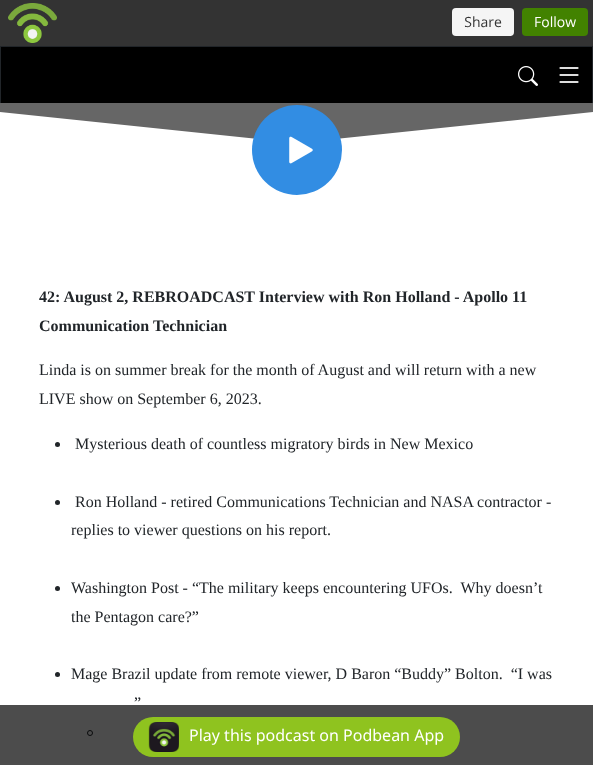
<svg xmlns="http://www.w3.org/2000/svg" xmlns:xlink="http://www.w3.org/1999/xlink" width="593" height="765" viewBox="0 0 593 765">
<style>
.cls-1{font:bold 16px Liberation Serif;fill:#212529}
.cls-2{font:16px Liberation Serif;fill:#212529}
.cls-3{font:16px Noto Sans;fill:#ffffff}
</style>
<rect width="100%" height="100%" fill="#ffffff"/>
<rect fill="#333333" x="0" y="0" width="593" height="46"/>
<image xlink:href="image0.png" x="8" y="3" width="580" height="40"/>
<rect fill="#212529" x="0" y="46" width="593" height="1"/>
<rect fill="#212529" x="592" y="46" width="1" height="57"/>
<rect fill="#212529" x="0" y="46" width="1" height="57"/>
<rect fill="#000000" x="1" y="47" width="591" height="56"/>
<image xlink:href="image1.png" x="518" y="66" width="20" height="20"/>
<image xlink:href="image2.png" x="559" y="67" width="20" height="16"/>
<rect fill="#666666" x="0" y="103" width="593" height="36"/>
<path fill="#ffffff" d="M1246 215H-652V44L297 143L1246 44Z"/>
<circle fill="#328de3" cx="297" cy="150" r="45"/>
<image xlink:href="image3.png" x="289" y="136" width="24" height="28"/>
<circle fill="#212529" cx="57.5" cy="444.5" r="2.5"/>
<circle fill="#212529" cx="57.5" cy="502.5" r="2.5"/>
<circle fill="#212529" cx="57.5" cy="588.5" r="2.5"/>
<circle fill="#212529" cx="57.5" cy="674.5" r="2.5"/>
<circle fill="none" stroke="#212529" cx="90" cy="733" r="2.5"/>
<rect fill="#000000" fill-opacity="0.7" x="0" y="705" width="593" height="60"/>
<rect fill="#8fc31f" x="133" y="717" width="327" height="40" rx="20"/>
<image xlink:href="image4.png" x="148" y="722" width="31" height="30"/>
<text class="cls-1"><tspan x="39" y="302">42: August 2, REBROADCAST Interview with Ron Holland - Apollo 11</tspan><tspan x="39" y="331">Communication Technician</tspan></text>
<text class="cls-2"><tspan x="39" y="375">Linda is on summer break for the month of August and will return with a new</tspan><tspan x="39" y="404">LIVE show on September 6, 2023.</tspan></text>
<text class="cls-2" x="75" y="449">Mysterious death of countless migratory birds in New Mexico</text>
<text class="cls-2" x="75" y="507">Ron Holland - retired Communications Technician and NASA contractor -</text>
<text class="cls-2" x="71" y="535">replies to viewer questions on his report.</text>
<text class="cls-2" xml:space="preserve"><tspan x="71" y="593">Washington Post - “The military keeps encountering UFOs.  Why doesn’t</tspan><tspan x="71" y="622">the Pentagon care?”</tspan></text>
<text class="cls-2" xml:space="preserve" x="71" y="679">Mage Brazil update from remote viewer, D Baron “Buddy” Bolton.  “I was</text>
<text class="cls-2" x="134" y="708">”</text>
<text class="cls-3" x="189" y="741">Play this podcast on Podbean App</text>
</svg>
